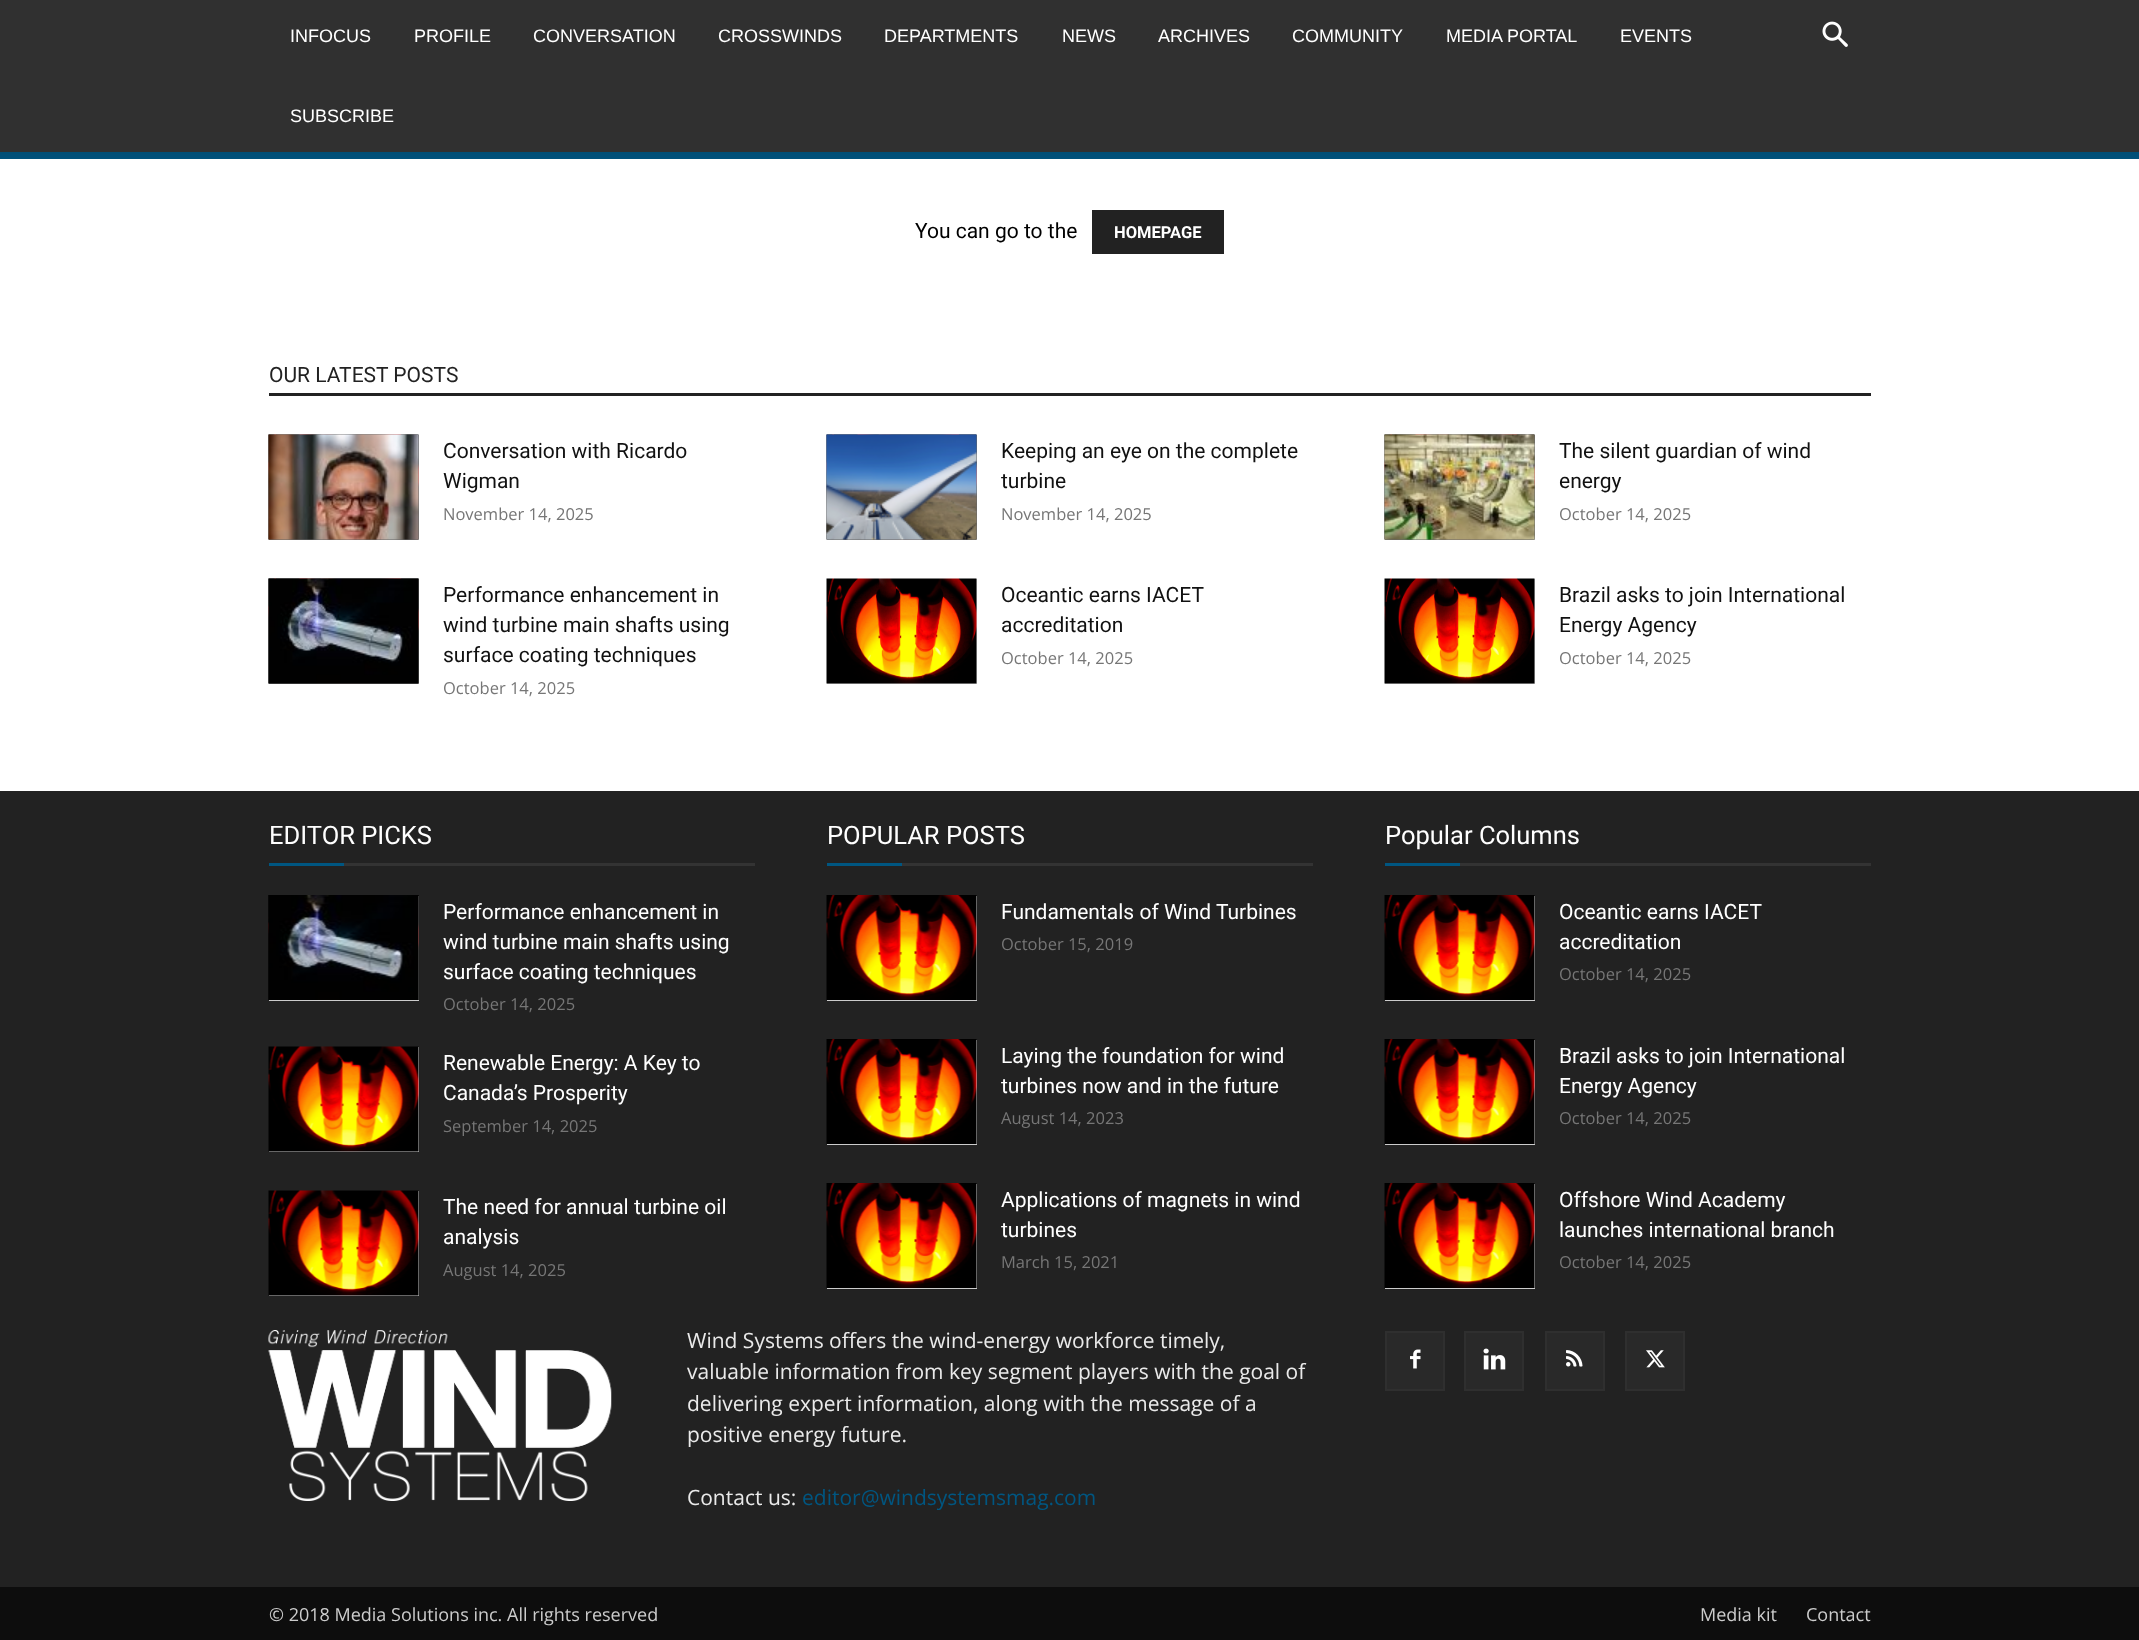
<svg xmlns="http://www.w3.org/2000/svg" xmlns:xlink="http://www.w3.org/1999/xlink" width="2139" height="1640" viewBox="0 0 2139 1640">
<style>
.cls-1{font:18px Liberation Sans;fill:#ffffff}
.cls-2{font:21px Roboto;fill:#000000}
.cls-3{font:bold 16.5px Roboto;fill:#ffffff}
.cls-4{font:21px Roboto;fill:#222222}
.cls-5{font:21px Roboto;fill:#111111}
.cls-6{font:16.5px Open Sans;fill:#767676}
.cls-7{font:25.5px Roboto;fill:#ffffff}
.cls-8{font:21px Roboto;fill:#ffffff}
.cls-9{font:21px Open Sans;fill:#eaeaea}
.cls-10{font:21px Open Sans;fill:#005681}
.cls-11{font:18px Open Sans;fill:#cccccc}
</style>
<rect width="100%" height="100%" fill="#ffffff"/>
<rect fill="#303030" x="0" y="0" width="2139" height="152"/>
<image xlink:href="image0.png" x="1822" y="21" width="26" height="26"/>
<rect fill="#005681" x="0" y="152" width="2139" height="7"/>
<image xlink:href="image1.png" x="0" y="152" width="2139" height="7"/>
<rect fill="#222222" x="1092" y="210" width="132" height="44"/>
<rect fill="#222222" x="269" y="393" width="1602" height="3"/>
<rect fill="#cccccc" x="269" y="435" width="150" height="105"/>
<image xlink:href="image2.png" x="268" y="434" width="151" height="106"/>
<image xlink:href="image3.png" x="268" y="434" width="151" height="106"/>
<rect fill="#cccccc" x="827" y="435" width="150" height="105"/>
<image xlink:href="image2.png" x="826" y="434" width="151" height="106"/>
<image xlink:href="image4.png" x="826" y="434" width="151" height="106"/>
<rect fill="#cccccc" x="1385" y="435" width="150" height="105"/>
<image xlink:href="image2.png" x="1384" y="434" width="151" height="106"/>
<image xlink:href="image5.png" x="1384" y="434" width="151" height="106"/>
<rect fill="#cccccc" x="269" y="579" width="150" height="105"/>
<image xlink:href="image6.png" x="268" y="578" width="151" height="106"/>
<image xlink:href="image7.png" x="268" y="578" width="151" height="106"/>
<rect fill="#cccccc" x="827" y="579" width="150" height="105"/>
<image xlink:href="image6.png" x="826" y="578" width="151" height="106"/>
<rect fill="#cccccc" x="1385" y="579" width="150" height="105"/>
<image xlink:href="image6.png" x="1384" y="578" width="151" height="106"/>
<rect fill="#222222" x="0" y="791" width="2139" height="796"/>
<rect fill="#005681" x="269" y="863" width="75" height="3"/>
<rect fill="#333333" x="344" y="863" width="411" height="3"/>
<rect fill="#cccccc" x="269" y="896" width="150" height="105"/>
<image xlink:href="image8.png" x="268" y="895" width="151" height="105"/>
<image xlink:href="image9.png" x="268" y="895" width="151" height="105"/>
<rect fill="#cccccc" x="269" y="1047" width="150" height="105"/>
<image xlink:href="image10.png" x="268" y="1046" width="151" height="106"/>
<rect fill="#cccccc" x="269" y="1191" width="150" height="105"/>
<image xlink:href="image10.png" x="268" y="1190" width="151" height="106"/>
<rect fill="#005681" x="827" y="863" width="75" height="3"/>
<rect fill="#333333" x="902" y="863" width="411" height="3"/>
<rect fill="#cccccc" x="827" y="896" width="150" height="105"/>
<image xlink:href="image8.png" x="826" y="895" width="151" height="105"/>
<rect fill="#cccccc" x="827" y="1040" width="150" height="105"/>
<image xlink:href="image11.png" x="826" y="1039" width="151" height="105"/>
<rect fill="#cccccc" x="827" y="1184" width="150" height="105"/>
<image xlink:href="image8.png" x="826" y="1183" width="151" height="105"/>
<rect fill="#005681" x="1385" y="863" width="75" height="3"/>
<rect fill="#333333" x="1460" y="863" width="411" height="3"/>
<rect fill="#cccccc" x="1385" y="896" width="150" height="105"/>
<image xlink:href="image8.png" x="1384" y="895" width="151" height="105"/>
<rect fill="#cccccc" x="1385" y="1040" width="150" height="105"/>
<image xlink:href="image11.png" x="1384" y="1039" width="151" height="105"/>
<rect fill="#cccccc" x="1385" y="1184" width="150" height="105"/>
<image xlink:href="image8.png" x="1384" y="1183" width="151" height="105"/>
<image xlink:href="image12.png" x="268" y="1330" width="344" height="171"/>
<rect fill="#292929" x="1387" y="1333" width="56" height="56"/>
<image xlink:href="image13.png" x="1410" y="1349" width="11" height="20"/>
<rect fill="none" stroke="#2f2f2f" stroke-width="2" x="1386" y="1332" width="58" height="58"/>
<rect fill="#292929" x="1466" y="1333" width="56" height="56"/>
<image xlink:href="image14.png" x="1483" y="1348" width="23" height="22"/>
<rect fill="none" stroke="#2f2f2f" stroke-width="2" x="1465" y="1332" width="58" height="58"/>
<rect fill="#292929" x="1547" y="1333" width="56" height="56"/>
<image xlink:href="image15.png" x="1566" y="1350" width="17" height="17"/>
<rect fill="none" stroke="#2f2f2f" stroke-width="2" x="1546" y="1332" width="58" height="58"/>
<rect fill="#292929" x="1627" y="1333" width="56" height="56"/>
<image xlink:href="image16.png" x="1646" y="1350" width="19" height="18"/>
<rect fill="none" stroke="#2f2f2f" stroke-width="2" x="1626" y="1332" width="58" height="58"/>
<rect fill="#0d0d0d" x="0" y="1587" width="2139" height="53"/>
<text class="cls-1" x="290" y="42">INFOCUS</text>
<text class="cls-1" x="414" y="42">PROFILE</text>
<text class="cls-1" x="533" y="42">CONVERSATION</text>
<text class="cls-1" x="718" y="42">CROSSWINDS</text>
<text class="cls-1" x="884" y="42">DEPARTMENTS</text>
<text class="cls-1" x="1062" y="42">NEWS</text>
<text class="cls-1" x="1158" y="42">ARCHIVES</text>
<text class="cls-1" x="1292" y="42">COMMUNITY</text>
<text class="cls-1" x="1446" y="42">MEDIA PORTAL</text>
<text class="cls-1" x="1620" y="42">EVENTS</text>
<text class="cls-1" x="290" y="122">SUBSCRIBE</text>
<text class="cls-2" x="915" y="238">You can go to the</text>
<text class="cls-3" x="1114" y="238">HOMEPAGE</text>
<text class="cls-4" x="269" y="382">OUR LATEST POSTS</text>
<text class="cls-5"><tspan x="443" y="458">Conversation with Ricardo</tspan><tspan x="443" y="488">Wigman</tspan></text>
<text class="cls-6" x="443" y="520">November 14, 2025</text>
<text class="cls-5"><tspan x="1001" y="458">Keeping an eye on the complete</tspan><tspan x="1001" y="488">turbine</tspan></text>
<text class="cls-6" x="1001" y="520">November 14, 2025</text>
<text class="cls-5"><tspan x="1559" y="458">The silent guardian of wind</tspan><tspan x="1559" y="488">energy</tspan></text>
<text class="cls-6" x="1559" y="520">October 14, 2025</text>
<text class="cls-5"><tspan x="443" y="602">Performance enhancement in</tspan><tspan x="443" y="632">wind turbine main shafts using</tspan><tspan x="443" y="662">surface coating techniques</tspan></text>
<text class="cls-6" x="443" y="694">October 14, 2025</text>
<text class="cls-5"><tspan x="1001" y="602">Oceantic earns IACET</tspan><tspan x="1001" y="632">accreditation</tspan></text>
<text class="cls-6" x="1001" y="664">October 14, 2025</text>
<text class="cls-5"><tspan x="1559" y="602">Brazil asks to join International</tspan><tspan x="1559" y="632">Energy Agency</tspan></text>
<text class="cls-6" x="1559" y="664">October 14, 2025</text>
<text class="cls-7" x="269" y="844">EDITOR PICKS</text>
<text class="cls-8"><tspan x="443" y="919">Performance enhancement in</tspan><tspan x="443" y="949">wind turbine main shafts using</tspan><tspan x="443" y="979">surface coating techniques</tspan></text>
<text class="cls-6" x="443" y="1010">October 14, 2025</text>
<text class="cls-8"><tspan x="443" y="1070">Renewable Energy: A Key to</tspan><tspan x="443" y="1100">Canada’s Prosperity</tspan></text>
<text class="cls-6" x="443" y="1132">September 14, 2025</text>
<text class="cls-8"><tspan x="443" y="1214">The need for annual turbine oil</tspan><tspan x="443" y="1244">analysis</tspan></text>
<text class="cls-6" x="443" y="1276">August 14, 2025</text>
<text class="cls-7" x="827" y="844">POPULAR POSTS</text>
<text class="cls-8" x="1001" y="919">Fundamentals of Wind Turbines</text>
<text class="cls-6" x="1001" y="950">October 15, 2019</text>
<text class="cls-8"><tspan x="1001" y="1063">Laying the foundation for wind</tspan><tspan x="1001" y="1093">turbines now and in the future</tspan></text>
<text class="cls-6" x="1001" y="1124">August 14, 2023</text>
<text class="cls-8"><tspan x="1001" y="1207">Applications of magnets in wind</tspan><tspan x="1001" y="1237">turbines</tspan></text>
<text class="cls-6" x="1001" y="1268">March 15, 2021</text>
<text class="cls-7" x="1385" y="844">Popular Columns</text>
<text class="cls-8"><tspan x="1559" y="919">Oceantic earns IACET</tspan><tspan x="1559" y="949">accreditation</tspan></text>
<text class="cls-6" x="1559" y="980">October 14, 2025</text>
<text class="cls-8"><tspan x="1559" y="1063">Brazil asks to join International</tspan><tspan x="1559" y="1093">Energy Agency</tspan></text>
<text class="cls-6" x="1559" y="1124">October 14, 2025</text>
<text class="cls-8"><tspan x="1559" y="1207">Offshore Wind Academy</tspan><tspan x="1559" y="1237">launches international branch</tspan></text>
<text class="cls-6" x="1559" y="1268">October 14, 2025</text>
<text class="cls-9"><tspan x="687" y="1348">Wind Systems offers the wind-energy workforce timely,</tspan><tspan x="687" y="1379">valuable information from key segment players with the goal of</tspan><tspan x="687" y="1411">delivering expert information, along with the message of a</tspan><tspan x="687" y="1442">positive energy future.</tspan></text>
<text class="cls-9" x="687" y="1505">Contact us:</text>
<text class="cls-10" x="802" y="1505">editor@windsystemsmag.com</text>
<text class="cls-11" x="269" y="1621">© 2018 Media Solutions inc. All rights reserved</text>
<text class="cls-11" x="1700" y="1621">Media kit</text>
<text class="cls-11" x="1806" y="1621">Contact</text>
</svg>
